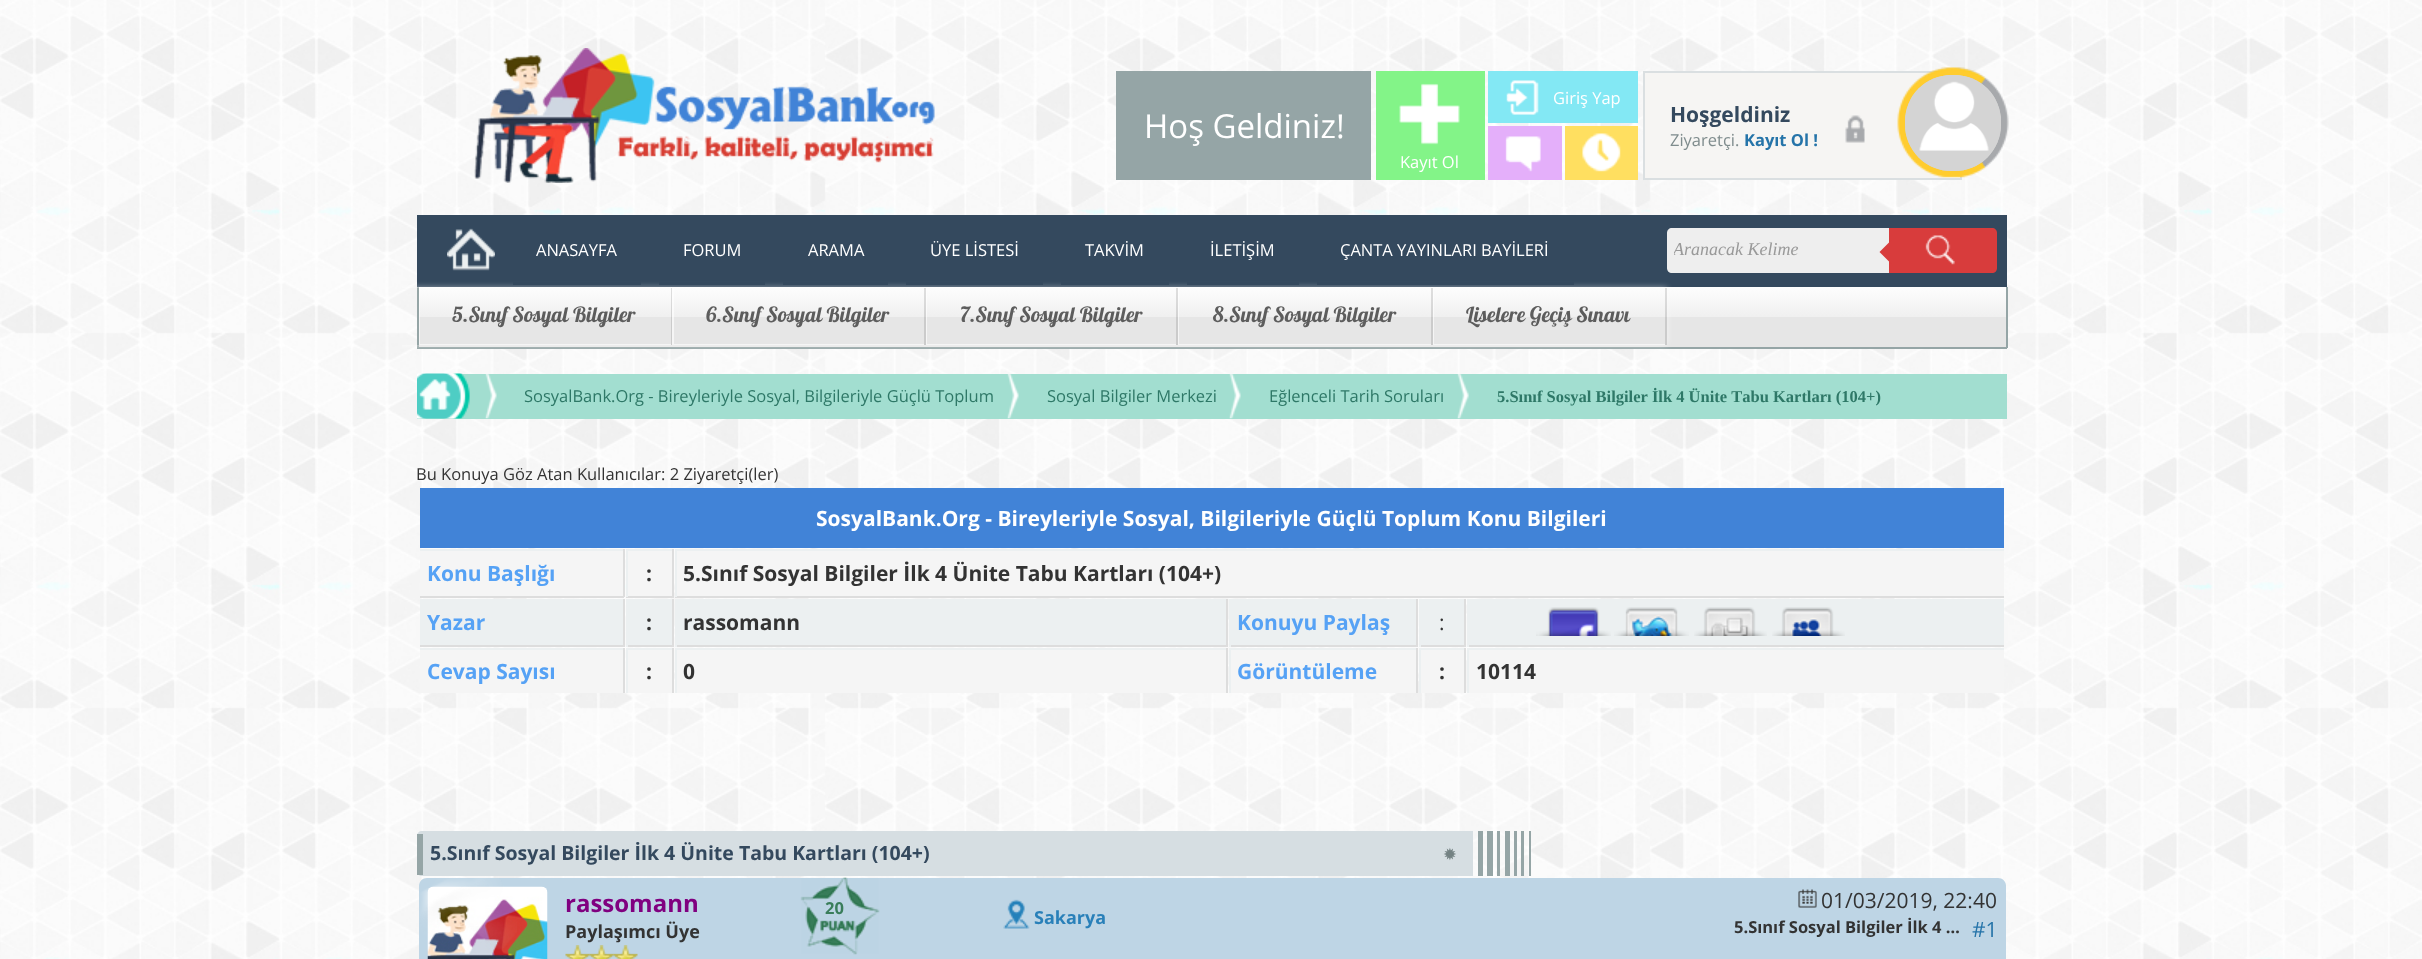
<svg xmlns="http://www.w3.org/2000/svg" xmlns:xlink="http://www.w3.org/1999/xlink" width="2422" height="959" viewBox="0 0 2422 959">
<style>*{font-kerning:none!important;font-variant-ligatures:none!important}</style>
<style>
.cls-1{font:33px Open Sans;fill:#ffffff}
.cls-2{font:16.5px Open Sans;fill:#ffffff}
.cls-3{font:bold 21px Open Sans;fill:#34495e}
.cls-4{font:16.5px Open Sans;fill:#7f8c8d}
.cls-5{font:bold 16.5px Open Sans;fill:#2574a9}
.cls-6{font:italic 18px Liberation Serif;fill:#999999}
.cls-7{font:21px Lobster;fill:#5d5d5d}
.cls-8{font:16.5px Open Sans;fill:#2e7867}
.cls-9{font:bold 16.5px Liberation Serif;fill:#2e7867}
.cls-10{font:16.5px Open Sans;fill:#333333}
.cls-11{font:bold 21px Open Sans;fill:#ffffff}
.cls-12{font:bold 21px Open Sans;fill:#56a2f5}
.cls-13{font:bold 21px Open Sans;fill:#333333}
.cls-14{font:21px Open Sans;fill:#333333}
.cls-15{font:bold 19.5px Open Sans;fill:#34495e}
.cls-16{font:16.5px DejaVu Sans;fill:#748283}
.cls-17{font:bold 24px Open Sans;fill:#800080}
.cls-18{font:bold 16.5px Open Sans;fill:#397d5a}
.cls-19{font:bold 18px Open Sans;fill:#333333}
.cls-20{font:bold 18px Open Sans;fill:#2980b9}
.cls-21{font:bold 16.5px Open Sans;fill:#333333}
.cls-22{font:21px Open Sans;fill:#2574a9}
</style>
<defs>
<linearGradient id="g1" gradientUnits="userSpaceOnUse" x1="1212" y1="286" x2="1212" y2="347"><stop offset="0" stop-color="#fefefe"/><stop offset="0.5" stop-color="#f0f0f0"/><stop offset="0.51" stop-color="#e6e6e6"/></linearGradient>
<clipPath id="clip1"><rect x="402" y="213" width="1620" height="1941"/></clipPath>
<clipPath id="clip2"><path d="M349 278H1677V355H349ZM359 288H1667V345H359Z" clip-rule="evenodd"/></clipPath>
<clipPath id="clip3"><rect x="419" y="288" width="252" height="57"/></clipPath>
<clipPath id="clip4"><rect x="672" y="288" width="252" height="57"/></clipPath>
<clipPath id="clip5"><rect x="926" y="288" width="250" height="57"/></clipPath>
<clipPath id="clip6"><rect x="1178" y="288" width="253" height="57"/></clipPath>
<linearGradient id="g2" gradientUnits="userSpaceOnUse" x1="1549" y1="288" x2="1549" y2="345"><stop offset="0" stop-color="#fefefe"/><stop offset="0.5" stop-color="#f0f0f0"/><stop offset="0.51" stop-color="#e6e6e6"/></linearGradient>
<clipPath id="clip7"><rect x="1433" y="288" width="232" height="57"/></clipPath>
<clipPath id="clip8"><rect x="1674" y="239" width="207" height="22"/></clipPath>
</defs>
<rect width="100%" height="100%" fill="#ffffff"/>
<image xlink:href="image0.png" x="0" y="0" width="2422" height="959"/>
<image xlink:href="image1.png" x="474" y="48" width="461" height="135"/>
<rect fill="#95a5a6" x="1116" y="71" width="255" height="109"/>
<rect fill="#83e8f4" x="1488" y="71" width="150" height="52"/>
<image xlink:href="image2.png" x="1506" y="80" width="33" height="35"/>
<rect fill="#83f488" x="1376" y="71" width="109" height="109"/>
<image xlink:href="image3.png" x="1399" y="83" width="61" height="62"/>
<rect fill="#e4affa" x="1488" y="126" width="74" height="54"/>
<image xlink:href="image4.png" x="1505" y="136" width="36" height="36"/>
<rect fill="#ffdf60" x="1565" y="126" width="73" height="54"/>
<image xlink:href="image5.png" x="1582" y="133" width="39" height="39"/>
<rect fill="#f6f5f3" stroke="#dadfe1" stroke-width="2" x="1644" y="72" width="317" height="107"/>
<image xlink:href="image6.png" x="1845" y="115" width="20" height="28"/>
<image xlink:href="image7.png" x="1897" y="67" width="112" height="111"/>
<image xlink:href="image8.png" x="1905" y="75" width="96" height="96"/>
<rect fill="#34495e" x="417" y="215" width="1590" height="72"/>
<image xlink:href="image9.png" x="447" y="228" width="48" height="43"/>
<rect fill="url(#g1)" x="419" y="287" width="1587" height="60"/>
<rect fill="#95a5a6" x="2006" y="287" width="2" height="61"/>
<rect fill="#95a5a6" x="417" y="347" width="1590" height="2"/>
<rect fill="#95a5a6" x="417" y="287" width="2" height="61"/>
<g clip-path="url(#clip1)">
<g clip-path="url(#clip2)">
<rect fill="#ffffff" fill-opacity="0.6" filter="blur(3px)" x="359" y="288" width="1308" height="57"/>
</g>
</g>
<rect fill="#34495e" x="513" y="282" width="128" height="3"/>
<rect fill="#34495e" x="659" y="282" width="106" height="3"/>
<rect fill="#34495e" x="783" y="282" width="105" height="3"/>
<rect fill="#34495e" x="906" y="282" width="137" height="3"/>
<rect fill="#34495e" x="1061" y="282" width="108" height="3"/>
<rect fill="#34495e" x="1187" y="282" width="112" height="3"/>
<rect fill="#34495e" x="1317" y="282" width="257" height="3"/>
<path fill="#eeeeee" d="M1672 228H1889V273H1672C1669 273 1667 271 1667 268V233C1667 230 1669 228 1672 228Z"/>
<path fill="#d83c3c" d="M1889 228H1992C1995 228 1997 230 1997 233V268C1997 271 1995 273 1992 273H1889Z"/>
<image xlink:href="image10.png" x="1925" y="235" width="30" height="30"/>
<path fill="#d83c3c" d="M1891.5 240V264L1879.5 252Z"/>
<g clip-path="url(#clip3)">
<path fill="#ffffff" fill-opacity="0.6" fill-rule="evenodd" d="M270 140H819V494H270ZM420 286H672V344H420Z"/>
</g>
<rect fill="#090909" fill-opacity="0.12" x="671" y="288" width="1" height="57"/>
<g clip-path="url(#clip4)">
<path fill="#ffffff" fill-opacity="0.6" fill-rule="evenodd" d="M524 140H1072V494H524ZM674 286H926V344H674Z"/>
</g>
<rect fill="#090909" fill-opacity="0.12" x="924" y="288" width="2" height="57"/>
<g clip-path="url(#clip5)">
<path fill="#ffffff" fill-opacity="0.6" fill-rule="evenodd" d="M777 140H1324V494H777ZM927 286H1178V344H927Z"/>
</g>
<rect fill="#090909" fill-opacity="0.12" x="1176" y="288" width="2" height="57"/>
<g clip-path="url(#clip6)">
<path fill="#ffffff" fill-opacity="0.6" fill-rule="evenodd" d="M1029 140H1580V494H1029ZM1179 286H1432V344H1179Z"/>
</g>
<rect fill="#090909" fill-opacity="0.12" x="1431" y="288" width="2" height="57"/>
<rect fill="url(#g2)" x="1666" y="317" width="1" height="27"/>
<g clip-path="url(#clip7)">
<path fill="#ffffff" fill-opacity="0.6" fill-rule="evenodd" d="M1284 140H1814V494H1284ZM1434 286H1666V344H1434Z"/>
</g>
<rect fill="#090909" fill-opacity="0.12" x="1665" y="288" width="2" height="57"/>
<rect fill="#a2ded0" x="417" y="374" width="1590" height="45"/>
<image xlink:href="image11.png" x="485" y="374" width="12" height="45"/>
<image xlink:href="image12.png" x="417" y="373" width="53" height="46"/>
<image xlink:href="image11.png" x="1007" y="374" width="12" height="45"/>
<image xlink:href="image11.png" x="1229" y="374" width="12" height="45"/>
<image xlink:href="image13.png" x="1457" y="374" width="12" height="45"/>
<rect fill="#4183d7" x="420" y="488" width="1584" height="60"/>
<rect fill="#f5f5f5" x="420" y="551" width="203" height="45"/>
<rect fill="#ecf0f1" x="420" y="549" width="204" height="2"/>
<rect fill="#dddddd" x="623" y="549" width="2" height="48"/>
<rect fill="#dddddd" x="420" y="596" width="204" height="2"/>
<rect fill="#f5f5f5" x="628" y="551" width="44" height="45"/>
<rect fill="#ecf0f1" x="626" y="549" width="48" height="2"/>
<rect fill="#dddddd" x="672" y="549" width="2" height="48"/>
<rect fill="#dddddd" x="626" y="596" width="48" height="2"/>
<rect fill="#ecf0f1" x="626" y="549" width="2" height="48"/>
<rect fill="#f5f5f5" x="677" y="551" width="1327" height="45"/>
<rect fill="#ecf0f1" x="675" y="549" width="1329" height="2"/>
<rect fill="#dddddd" x="675" y="596" width="1329" height="2"/>
<rect fill="#ecf0f1" x="675" y="549" width="2" height="48"/>
<rect fill="#ecf0f1" x="420" y="599" width="203" height="46"/>
<rect fill="#dddddd" x="623" y="599" width="2" height="48"/>
<rect fill="#dddddd" x="420" y="645" width="204" height="2"/>
<rect fill="#ecf0f1" x="628" y="599" width="44" height="46"/>
<rect fill="#dddddd" x="672" y="599" width="2" height="48"/>
<rect fill="#dddddd" x="626" y="645" width="48" height="2"/>
<rect fill="#ecf0f1" x="626" y="599" width="2" height="48"/>
<rect fill="#ecf0f1" x="677" y="599" width="549" height="46"/>
<rect fill="#dddddd" x="1226" y="599" width="2" height="48"/>
<rect fill="#dddddd" x="675" y="645" width="552" height="2"/>
<rect fill="#ecf0f1" x="675" y="599" width="2" height="48"/>
<rect fill="#ecf0f1" x="1231" y="599" width="185" height="46"/>
<rect fill="#dddddd" x="1416" y="599" width="2" height="48"/>
<rect fill="#dddddd" x="1229" y="645" width="189" height="2"/>
<rect fill="#ecf0f1" x="1229" y="599" width="2" height="48"/>
<rect fill="#ecf0f1" x="1421" y="599" width="43" height="46"/>
<rect fill="#dddddd" x="1464" y="599" width="2" height="48"/>
<rect fill="#dddddd" x="1419" y="645" width="47" height="2"/>
<rect fill="#ecf0f1" x="1419" y="599" width="2" height="48"/>
<rect fill="#ecf0f1" x="1469" y="599" width="535" height="46"/>
<rect fill="#dddddd" x="1467" y="645" width="537" height="2"/>
<rect fill="#ecf0f1" x="1467" y="599" width="2" height="48"/>
<image xlink:href="image14.png" x="1536" y="607" width="75" height="29"/>
<image xlink:href="image15.png" x="1614" y="607" width="75" height="29"/>
<image xlink:href="image16.png" x="1694" y="607" width="73" height="29"/>
<image xlink:href="image17.png" x="1772" y="607" width="73" height="29"/>
<rect fill="#f5f5f5" x="420" y="650" width="203" height="43"/>
<rect fill="#ecf0f1" x="420" y="648" width="204" height="2"/>
<rect fill="#dddddd" x="623" y="648" width="2" height="45"/>
<rect fill="#f5f5f5" x="628" y="650" width="44" height="43"/>
<rect fill="#ecf0f1" x="626" y="648" width="48" height="2"/>
<rect fill="#dddddd" x="672" y="648" width="2" height="45"/>
<rect fill="#ecf0f1" x="626" y="648" width="2" height="45"/>
<rect fill="#f5f5f5" x="677" y="650" width="549" height="43"/>
<rect fill="#ecf0f1" x="675" y="648" width="552" height="2"/>
<rect fill="#dddddd" x="1226" y="648" width="2" height="45"/>
<rect fill="#ecf0f1" x="675" y="648" width="2" height="45"/>
<rect fill="#f5f5f5" x="1231" y="650" width="185" height="43"/>
<rect fill="#ecf0f1" x="1229" y="648" width="189" height="2"/>
<rect fill="#dddddd" x="1416" y="648" width="2" height="45"/>
<rect fill="#ecf0f1" x="1229" y="648" width="2" height="45"/>
<rect fill="#f5f5f5" x="1421" y="650" width="43" height="43"/>
<rect fill="#ecf0f1" x="1419" y="648" width="47" height="2"/>
<rect fill="#dddddd" x="1464" y="648" width="2" height="45"/>
<rect fill="#ecf0f1" x="1419" y="648" width="2" height="45"/>
<rect fill="#f5f5f5" x="1469" y="650" width="535" height="43"/>
<rect fill="#ecf0f1" x="1467" y="648" width="537" height="2"/>
<rect fill="#ecf0f1" x="1467" y="648" width="2" height="45"/>
<path fill="#d6dee2" d="M422 831H1473V876H422C419 876 417 874 417 871V836C417 833 419 831 422 831Z"/>
<rect fill="#95a5a6" x="417" y="834" width="6" height="41"/>
<rect fill="#95a5a6" x="1478" y="831" width="5" height="45"/>
<rect fill="#95a5a6" x="1487" y="831" width="6" height="45"/>
<rect fill="#95a5a6" x="1497" y="831" width="3" height="45"/>
<rect fill="#95a5a6" x="1505" y="831" width="5" height="45"/>
<rect fill="#95a5a6" x="1514" y="831" width="3" height="45"/>
<rect fill="#95a5a6" x="1521" y="831" width="3" height="45"/>
<rect fill="#95a5a6" x="1529" y="831" width="2" height="45"/>
<path fill="#bed5e5" d="M427 878H1998C2002.5 878 2006 881.5 2006 886V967H419V886C419 881.5 422.5 878 427 878Z"/>
<image xlink:href="image19.png" x="427" y="886" width="121" height="73"/>
<image xlink:href="image18.png" x="419" y="878" width="98" height="72"/>
<image xlink:href="image20.png" x="800" y="877" width="80" height="78"/>
<image xlink:href="image21.png" x="565" y="945" width="25" height="14"/>
<image xlink:href="image22.png" x="589" y="945" width="25" height="14"/>
<image xlink:href="image22.png" x="613" y="945" width="25" height="14"/>
<image xlink:href="image23.png" x="1003" y="899" width="27" height="30"/>
<image xlink:href="image24.png" x="1798" y="889" width="19" height="19"/>
<text class="cls-1" x="1144" y="138">Hoş Geldiniz!</text>
<text class="cls-2" x="1553" y="104">Giriş Yap</text>
<text class="cls-2" x="1400" y="168">Kayıt Ol</text>
<text class="cls-3" x="1670" y="122">Hoşgeldiniz</text>
<text class="cls-4" x="1670" y="146">Ziyaretçi.</text>
<text class="cls-5" x="1744" y="146">Kayıt Ol !</text>
<text class="cls-2" x="536" y="256">ANASAYFA</text>
<text class="cls-2" x="683" y="256">FORUM</text>
<text class="cls-2" x="808" y="256">ARAMA</text>
<text class="cls-2" x="930" y="256">ÜYE LİSTESİ</text>
<text class="cls-2" x="1085" y="256">TAKVİM</text>
<text class="cls-2" x="1210" y="256">İLETİŞİM</text>
<text class="cls-2" x="1340" y="256">ÇANTA YAYINLARI BAYİLERİ</text>
<g clip-path="url(#clip8)">
<text class="cls-6" x="1673" y="255">Aranacak Kelime</text>
</g>
<text class="cls-7" x="452" y="322">5.Sınıf Sosyal Bilgiler</text>
<text class="cls-7" x="706" y="322">6.Sınıf Sosyal Bilgiler</text>
<text class="cls-7" x="960" y="322">7.Sınıf Sosyal Bilgiler</text>
<text class="cls-7" x="1213" y="322">8.Sınıf Sosyal Bilgiler</text>
<text class="cls-7" x="1466" y="322">Liselere Geçiş Sınavı</text>
<text class="cls-8" x="524" y="402">SosyalBank.Org - Bireyleriyle Sosyal, Bilgileriyle Güçlü Toplum</text>
<text class="cls-8" x="1047" y="402">Sosyal Bilgiler Merkezi</text>
<text class="cls-8" x="1269" y="402">Eğlenceli Tarih Soruları</text>
<text class="cls-9" x="1497" y="402">5.Sınıf Sosyal Bilgiler İlk 4 Ünite Tabu Kartları (104+)</text>
<text class="cls-10" x="416" y="480">Bu Konuya Göz Atan Kullanıcılar: 2 Ziyaretçi(ler)</text>
<text class="cls-11" x="816" y="526">SosyalBank.Org - Bireyleriyle Sosyal, Bilgileriyle Güçlü Toplum Konu Bilgileri</text>
<text class="cls-12" x="427" y="581">Konu Başlığı</text>
<text class="cls-13" x="646" y="581">:</text>
<text class="cls-13" x="683" y="581">5.Sınıf Sosyal Bilgiler İlk 4 Ünite Tabu Kartları (104+)</text>
<text class="cls-12" x="427" y="630">Yazar</text>
<text class="cls-13" x="646" y="630">:</text>
<text class="cls-13" x="683" y="630">rassomann</text>
<text class="cls-12" x="1237" y="630">Konuyu Paylaş</text>
<text class="cls-14" x="1439" y="630">:</text>
<text class="cls-12" x="427" y="679">Cevap Sayısı</text>
<text class="cls-13" x="646" y="679">:</text>
<text class="cls-13" x="683" y="679">0</text>
<text class="cls-12" x="1237" y="679">Görüntüleme</text>
<text class="cls-13" x="1439" y="679">:</text>
<text class="cls-13" x="1476" y="679">10114</text>
<text class="cls-15" x="430" y="860">5.Sınıf Sosyal Bilgiler İlk 4 Ünite Tabu Kartları (104+)</text>
<text class="cls-16" x="1443" y="860">✹</text>
<text class="cls-17" x="565" y="912">rassomann</text>
<text class="cls-18" x="825" y="914">20</text>
<text class="cls-19" x="565" y="938">Paylaşımcı Üye</text>
<text class="cls-20" x="1034" y="924">Sakarya</text>
<text class="cls-14" x="1821" y="908">01/03/2019, 22:40</text>
<text class="cls-21" x="1734" y="933">5.Sınıf Sosyal Bilgiler İlk 4 …</text>
<text class="cls-22" x="1972" y="937">#1</text>
</svg>
